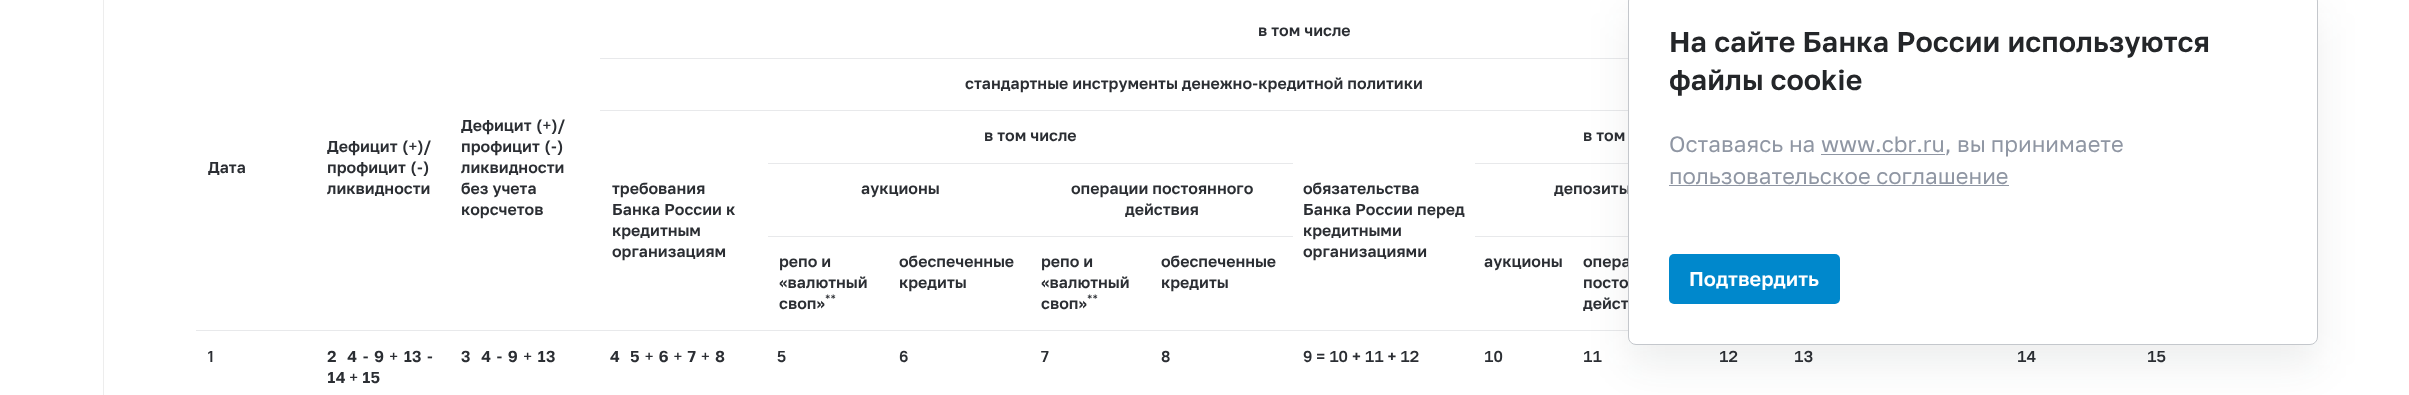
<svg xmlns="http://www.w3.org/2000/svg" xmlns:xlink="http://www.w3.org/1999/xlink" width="2409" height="395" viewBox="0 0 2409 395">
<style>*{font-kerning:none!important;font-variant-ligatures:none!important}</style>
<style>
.cls-1{font:500 15.9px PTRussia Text;fill:#2b2e33}
.cls-2{font:500 12px PTRussia Text;fill:#2b2e33}
.cls-3{font:bold 15.9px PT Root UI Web;fill:#2b2e33}
.cls-4{font:bold 15.9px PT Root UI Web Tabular;fill:#2b2e33}
.cls-5{font:500 28.6px PTRussia Text;fill:#242629}
.cls-6{font:22.25px PTRussia Text;fill:#8f96a3}
.cls-7{font:500 20px PTRussia Text;fill:#ffffff}
</style>
<rect width="100%" height="100%" fill="#ffffff"/>
<rect fill="#ededed" x="103" y="0" width="1" height="395"/>
<rect fill="#e8e9eb" x="600" y="58" width="1028" height="1"/>
<rect fill="#e8e9eb" x="196" y="330" width="955" height="1"/>
<rect fill="#e8e9eb" x="600" y="110" width="1028" height="1"/>
<rect fill="#e8e9eb" x="768" y="163" width="525" height="1"/>
<rect fill="#e8e9eb" x="1475" y="163" width="153" height="1"/>
<rect fill="#e8e9eb" x="1151" y="330" width="477" height="1"/>
<rect fill="#e8e9eb" x="768" y="236" width="525" height="1"/>
<rect fill="#e8e9eb" x="1475" y="236" width="153" height="1"/>
<rect fill="#1f2229" fill-opacity="0.08" filter="blur(20px)" x="1628" y="13" width="690" height="352" rx="8"/>
<text class="cls-1" x="1258" y="36">в том числе</text>
<text class="cls-1" x="208" y="173">Дата</text>
<text class="cls-1"><tspan x="327" y="152" word-spacing="1">Дефицит (+)/</tspan><tspan x="327" y="173" word-spacing="1">профицит (-)</tspan><tspan x="327" y="194">ликвидности</tspan></text>
<text class="cls-1"><tspan x="461" y="131" word-spacing="1">Дефицит (+)/</tspan><tspan x="461" y="152" word-spacing="1">профицит (-)</tspan><tspan x="461" y="173">ликвидности</tspan><tspan x="461" y="194">без учета</tspan><tspan x="461" y="215">корсчетов</tspan></text>
<text class="cls-1" x="965" y="89">стандартные инструменты денежно-кредитной политики</text>
<text class="cls-1" x="984" y="141">в том числе</text>
<text class="cls-1" x="1583" y="141">в том</text>
<text class="cls-1"><tspan x="612" y="194">требования</tspan><tspan x="612" y="215">Банка России к</tspan><tspan x="612" y="236">кредитным</tspan><tspan x="612" y="257">организациям</tspan></text>
<text class="cls-1"><tspan x="1303" y="194">обязательства</tspan><tspan x="1303" y="215">Банка России перед</tspan><tspan x="1303" y="236">кредитными</tspan><tspan x="1303" y="257">организациями</tspan></text>
<text class="cls-1" x="861" y="194">аукционы</text>
<text class="cls-1" x="1071" y="194">операции постоянного</text>
<text class="cls-1" x="1125" y="215">действия</text>
<text class="cls-1" x="1554" y="194">депозиты</text>
<text class="cls-1"><tspan x="779" y="267">репо и</tspan><tspan x="779" y="288">«валютный</tspan></text>
<text class="cls-2" x="825" y="303">**</text>
<text class="cls-1" x="779" y="309">своп»</text>
<text class="cls-1"><tspan x="899" y="267">обеспеченные</tspan><tspan x="899" y="288">кредиты</tspan></text>
<text class="cls-1"><tspan x="1041" y="267">репо и</tspan><tspan x="1041" y="288">«валютный</tspan></text>
<text class="cls-2" x="1087" y="303">**</text>
<text class="cls-1" x="1041" y="309">своп»</text>
<text class="cls-1"><tspan x="1161" y="267">обеспеченные</tspan><tspan x="1161" y="288">кредиты</tspan></text>
<text class="cls-1" x="1484" y="267">аукционы</text>
<text class="cls-1"><tspan x="1583" y="267">опера</tspan><tspan x="1583" y="288">посто</tspan><tspan x="1583" y="309">дейст</tspan></text>
<text class="cls-3" x="208" y="362">1</text>
<text class="cls-1"><tspan x="327" y="362" word-spacing="1.5">2 = 4 - 9 + 13 -</tspan><tspan x="327" y="383">14 + 15</tspan></text>
<text class="cls-1" x="461" y="362" word-spacing="1.5">3 = 4 - 9 + 13</text>
<text class="cls-1" x="610" y="362" word-spacing="1.25">4 = 5 + 6 + 7 + 8</text>
<text class="cls-3" x="777" y="362">5</text>
<text class="cls-3" x="899" y="362">6</text>
<text class="cls-3" x="1041" y="362">7</text>
<text class="cls-3" x="1161" y="362">8</text>
<text class="cls-4" x="1303" y="362" word-spacing="-0.25">9 = 10 + 11 + 12</text>
<text class="cls-4" x="1484" y="362">10</text>
<text class="cls-4" x="1583" y="362">11</text>
<text class="cls-4" x="1719" y="362">12</text>
<text class="cls-4" x="1794" y="362">13</text>
<text class="cls-4" x="2017" y="362">14</text>
<text class="cls-4" x="2147" y="362">15</text>
<rect fill="#ffffff" stroke="#c4c7cc" x="1628.5" y="-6.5" width="689" height="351" rx="7.5"/>
<text class="cls-5"><tspan x="1669" y="52">На сайте Банка России используются</tspan><tspan x="1669" y="90">файлы cookie</tspan></text>
<text class="cls-6" x="1669" y="152">Оставаясь на www.cbr.ru, вы принимаете</text>
<rect fill="#8f96a3" x="1821" y="154" width="124" height="1"/>
<text class="cls-6" x="1669" y="184">пользовательское соглашение</text>
<rect fill="#8f96a3" x="1669" y="185" width="340" height="1"/>
<rect fill="#0088cc" x="1669" y="254" width="171" height="50" rx="5"/>
<text class="cls-7" x="1689" y="286">Подтвердить</text>
</svg>
